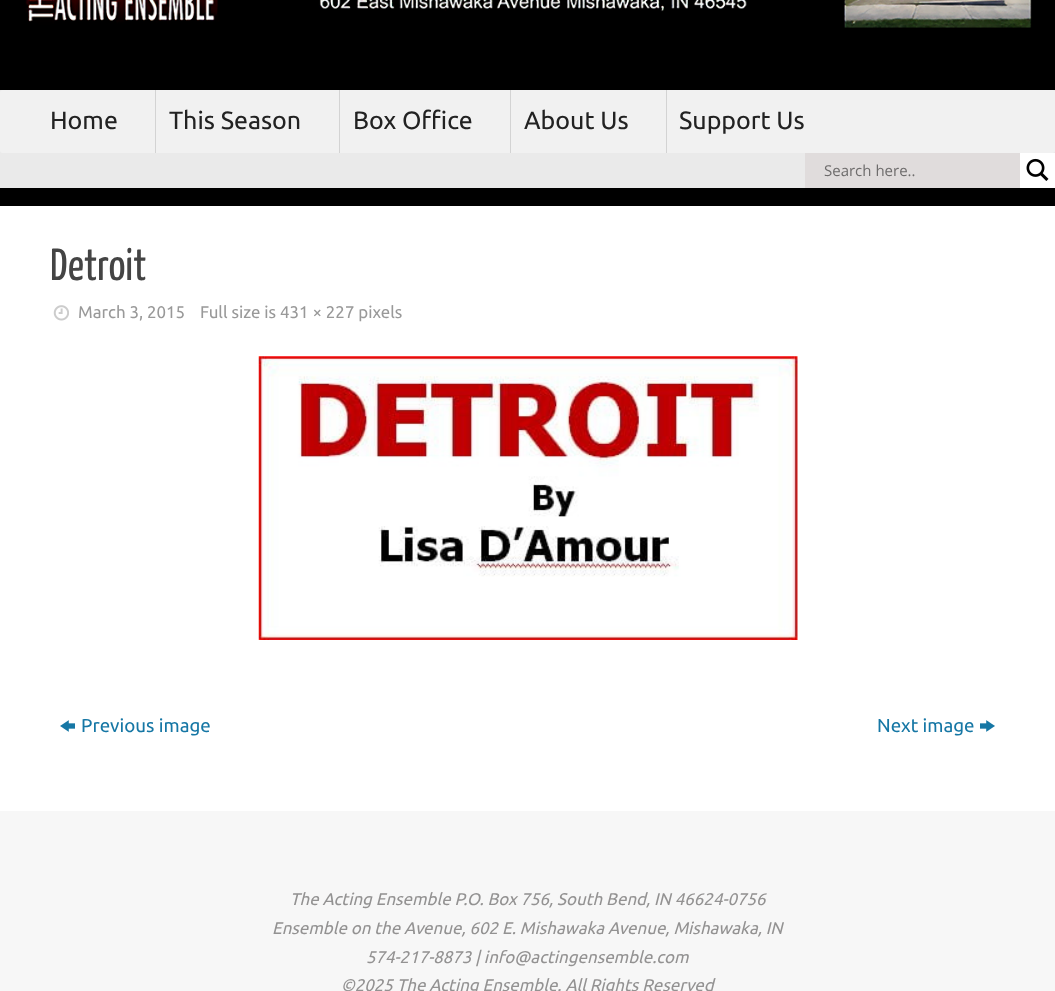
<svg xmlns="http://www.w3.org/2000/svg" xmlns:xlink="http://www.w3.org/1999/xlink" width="1055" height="991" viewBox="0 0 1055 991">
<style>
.cls-1{font:25px Ubuntu;fill:#222222}
.cls-2{font:15px Open Sans;fill:#6e6c6c}
.cls-3{font:45px Yanone Kaffeesatz;fill:#444444}
.cls-4{font:16.9px Ubuntu;fill:#999999}
.cls-5{font:18.75px Ubuntu;fill:#1677a5}
.cls-6{font:italic 16.9px Ubuntu;fill:#939292}
</style>
<rect width="100%" height="100%" fill="#000000"/>
<image xlink:href="image0.png" x="25" y="0" width="1007" height="28"/>
<rect fill="#eaeaea" x="0" y="90" width="1055" height="98"/>
<rect fill="#f1f1f1" x="0" y="90" width="1055" height="63" rx="2.5"/>
<rect fill="#d3d3d3" x="155" y="90" width="1" height="63"/>
<rect fill="#d3d3d3" x="339" y="90" width="1" height="63"/>
<rect fill="#d3d3d3" x="510" y="90" width="1" height="63"/>
<rect fill="#d3d3d3" x="666" y="90" width="1" height="63"/>
<rect fill="#e0dcdc" x="805" y="153" width="215" height="35"/>
<rect fill="#ffffff" x="1020" y="153" width="35" height="35"/>
<image xlink:href="image1.png" x="1026" y="158" width="23" height="23"/>
<rect fill="#ffffff" x="0" y="206" width="1055" height="605"/>
<image xlink:href="image2.png" x="53" y="305" width="16" height="16"/>
<image xlink:href="image3.png" x="258" y="356" width="540" height="284"/>
<image xlink:href="image4.png" x="60" y="720" width="15" height="12"/>
<image xlink:href="image5.png" x="980" y="720" width="15" height="12"/>
<rect fill="#f7f7f7" x="0" y="811" width="1055" height="180"/>
<text class="cls-1" x="50" y="129">Home</text>
<text class="cls-1" x="169" y="129">This Season</text>
<text class="cls-1" x="353" y="129">Box Office</text>
<text class="cls-1" x="524" y="129">About Us</text>
<text class="cls-1" x="679" y="129">Support Us</text>
<text class="cls-2" x="824" y="176">Search here..</text>
<text class="cls-3" x="50" y="280">Detroit</text>
<text class="cls-4" x="78" y="318">March 3, 2015</text>
<text class="cls-4" x="200" y="318">Full size is 431 × 227 pixels</text>
<text class="cls-5" x="81" y="732">Previous image</text>
<text class="cls-5" x="877" y="732">Next image</text>
<text class="cls-6" x="290" y="905">The Acting Ensemble P.O. Box 756, South Bend, IN 46624-0756</text>
<text class="cls-6" x="272" y="934">Ensemble on the Avenue, 602 E. Mishawaka Avenue, Mishawaka, IN</text>
<text class="cls-6" x="366" y="963">574-217-8873 | info@actingensemble.com</text>
<text class="cls-6" x="341" y="991">©2025 The Acting Ensemble. All Rights Reserved</text>
</svg>
